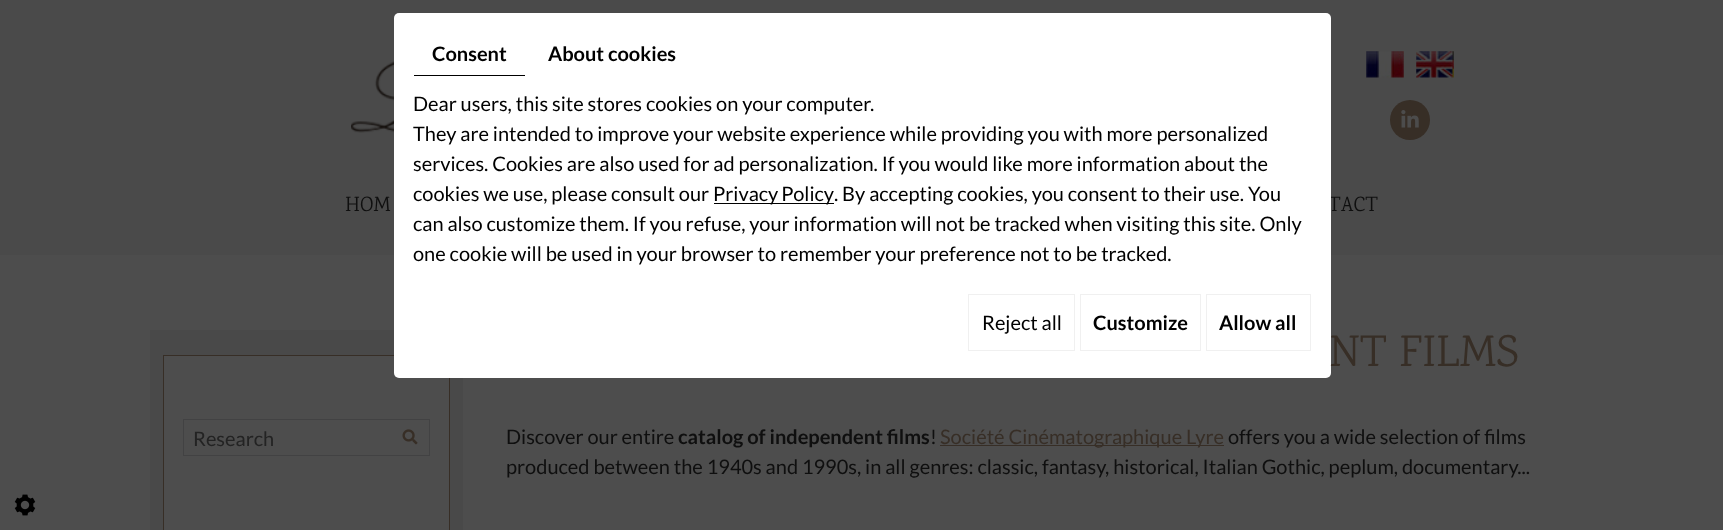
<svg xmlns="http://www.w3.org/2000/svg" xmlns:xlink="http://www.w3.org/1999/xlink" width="1723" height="530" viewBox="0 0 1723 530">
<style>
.cls-1{font:21px Karma;fill:#0f0f0f}
.cls-2{font:bold 20px Lato;fill:#000000}
.cls-3{font:20px Lato;fill:#000000}
.cls-4{font:20px Lato;fill:#232323}
.cls-5{font:45px Karma;fill:#372e26}
.cls-6{font:20px Lato;fill:#0f0f0f}
.cls-7{font:bold 20px Lato;fill:#0f0f0f}
.cls-8{font:20px Lato;fill:#372e26}
</style>
<rect width="100%" height="100%" fill="#4d4d4d"/>
<rect fill="#4a4a4a" x="0" y="0" width="1723" height="255"/>
<image xlink:href="image0.png" x="351" y="61" width="43" height="72"/>
<image xlink:href="image1.png" x="1366" y="51" width="38" height="27"/>
<image xlink:href="image2.png" x="1416" y="51" width="38" height="27"/>
<circle fill="#372e26" cx="1410" cy="120" r="20"/>
<image xlink:href="image3.png" x="1401" y="110" width="18" height="18"/>
<rect fill="#494949" x="150" y="330" width="313" height="200"/>
<rect fill="#4d4d4d" stroke="#372e26" x="163.5" y="355.5" width="286" height="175"/>
<rect fill="none" stroke="#424243" x="183.5" y="419.5" width="246" height="36"/>
<image xlink:href="image4.png" x="402" y="429" width="16" height="16"/>
<rect fill="#372e26" x="940" y="445" width="284" height="1"/>
<image xlink:href="image5.png" x="14" y="494" width="22" height="22"/>
<text class="cls-1" x="345" y="211">HOM</text>
<text class="cls-1" x="1328" y="211">TACT</text>
<rect fill="#ffffff" x="394" y="13" width="937" height="365" rx="5"/>
<rect fill="none" stroke="#f0f0f0" x="1206.5" y="294.5" width="104" height="56"/>
<text class="cls-2" x="1219" y="330">Allow all</text>
<rect fill="none" stroke="#f0f0f0" x="1080.5" y="294.5" width="120" height="56"/>
<text class="cls-2" x="1093" y="330">Customize</text>
<rect fill="none" stroke="#f0f0f0" x="968.5" y="294.5" width="106" height="56"/>
<text class="cls-3" x="982" y="330">Reject all</text>
<text class="cls-3" x="413" y="261">one cookie will be used in your browser to remember your preference not to be tracked.</text>
<text class="cls-3" x="413" y="231">can also customize them. If you refuse, your information will not be tracked when visiting this site. Only</text>
<text class="cls-3" x="834" y="201">. By accepting cookies, you consent to their use. You</text>
<rect fill="#000000" x="714" y="203" width="120" height="1"/>
<text class="cls-3" x="713" y="201" word-spacing="-1">Privacy Policy</text>
<text class="cls-3" x="413" y="201">cookies we use, please consult our</text>
<text class="cls-3" x="413" y="171">services. Cookies are also used for ad personalization. If you would like more information about the</text>
<text class="cls-3" x="413" y="141">They are intended to improve your website experience while providing you with more personalized</text>
<text class="cls-3" x="413" y="111">Dear users, this site stores cookies on your computer.</text>
<text class="cls-2" x="548" y="61">About cookies</text>
<text class="cls-2" x="432" y="61">Consent</text>
<rect fill="#000000" x="414" y="75" width="111" height="1"/>
<text class="cls-4" x="193" y="446">Research</text>
<text class="cls-5" x="1329" y="366">NT FILMS</text>
<text class="cls-6" x="506" y="444">Discover our entire</text>
<text class="cls-7" x="678" y="444">catalog of independent films</text>
<text class="cls-6" x="930" y="444">!</text>
<text class="cls-8" x="940" y="444">Société Cinématographique Lyre</text>
<text class="cls-6" x="1228" y="444">offers you a wide selection of films</text>
<text class="cls-6" x="506" y="474">produced between the 1940s and 1990s, in all genres: classic, fantasy, historical, Italian Gothic, peplum, documentary...</text>
</svg>
